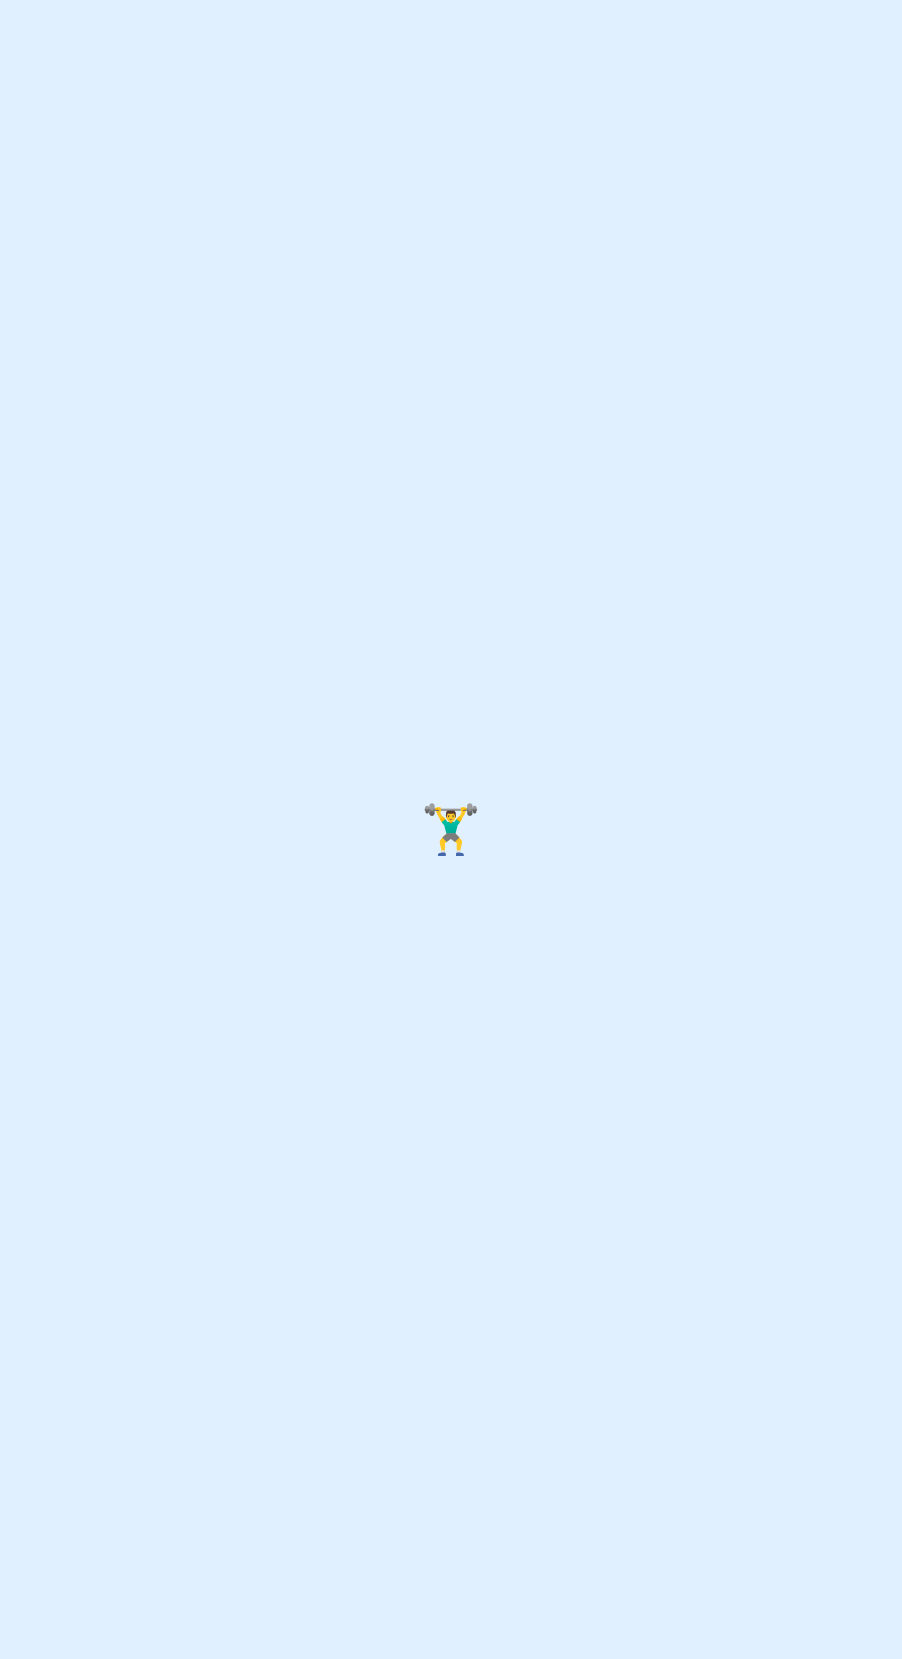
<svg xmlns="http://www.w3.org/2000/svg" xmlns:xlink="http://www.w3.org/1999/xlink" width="902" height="1659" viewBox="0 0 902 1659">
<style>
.cls-1{font:48px Noto Color Emoji;fill:#666666}
</style>
<rect width="100%" height="100%" fill="#e0f0ff"/>
<text class="cls-1" x="421" y="846">🏋️‍♂️</text>
</svg>
